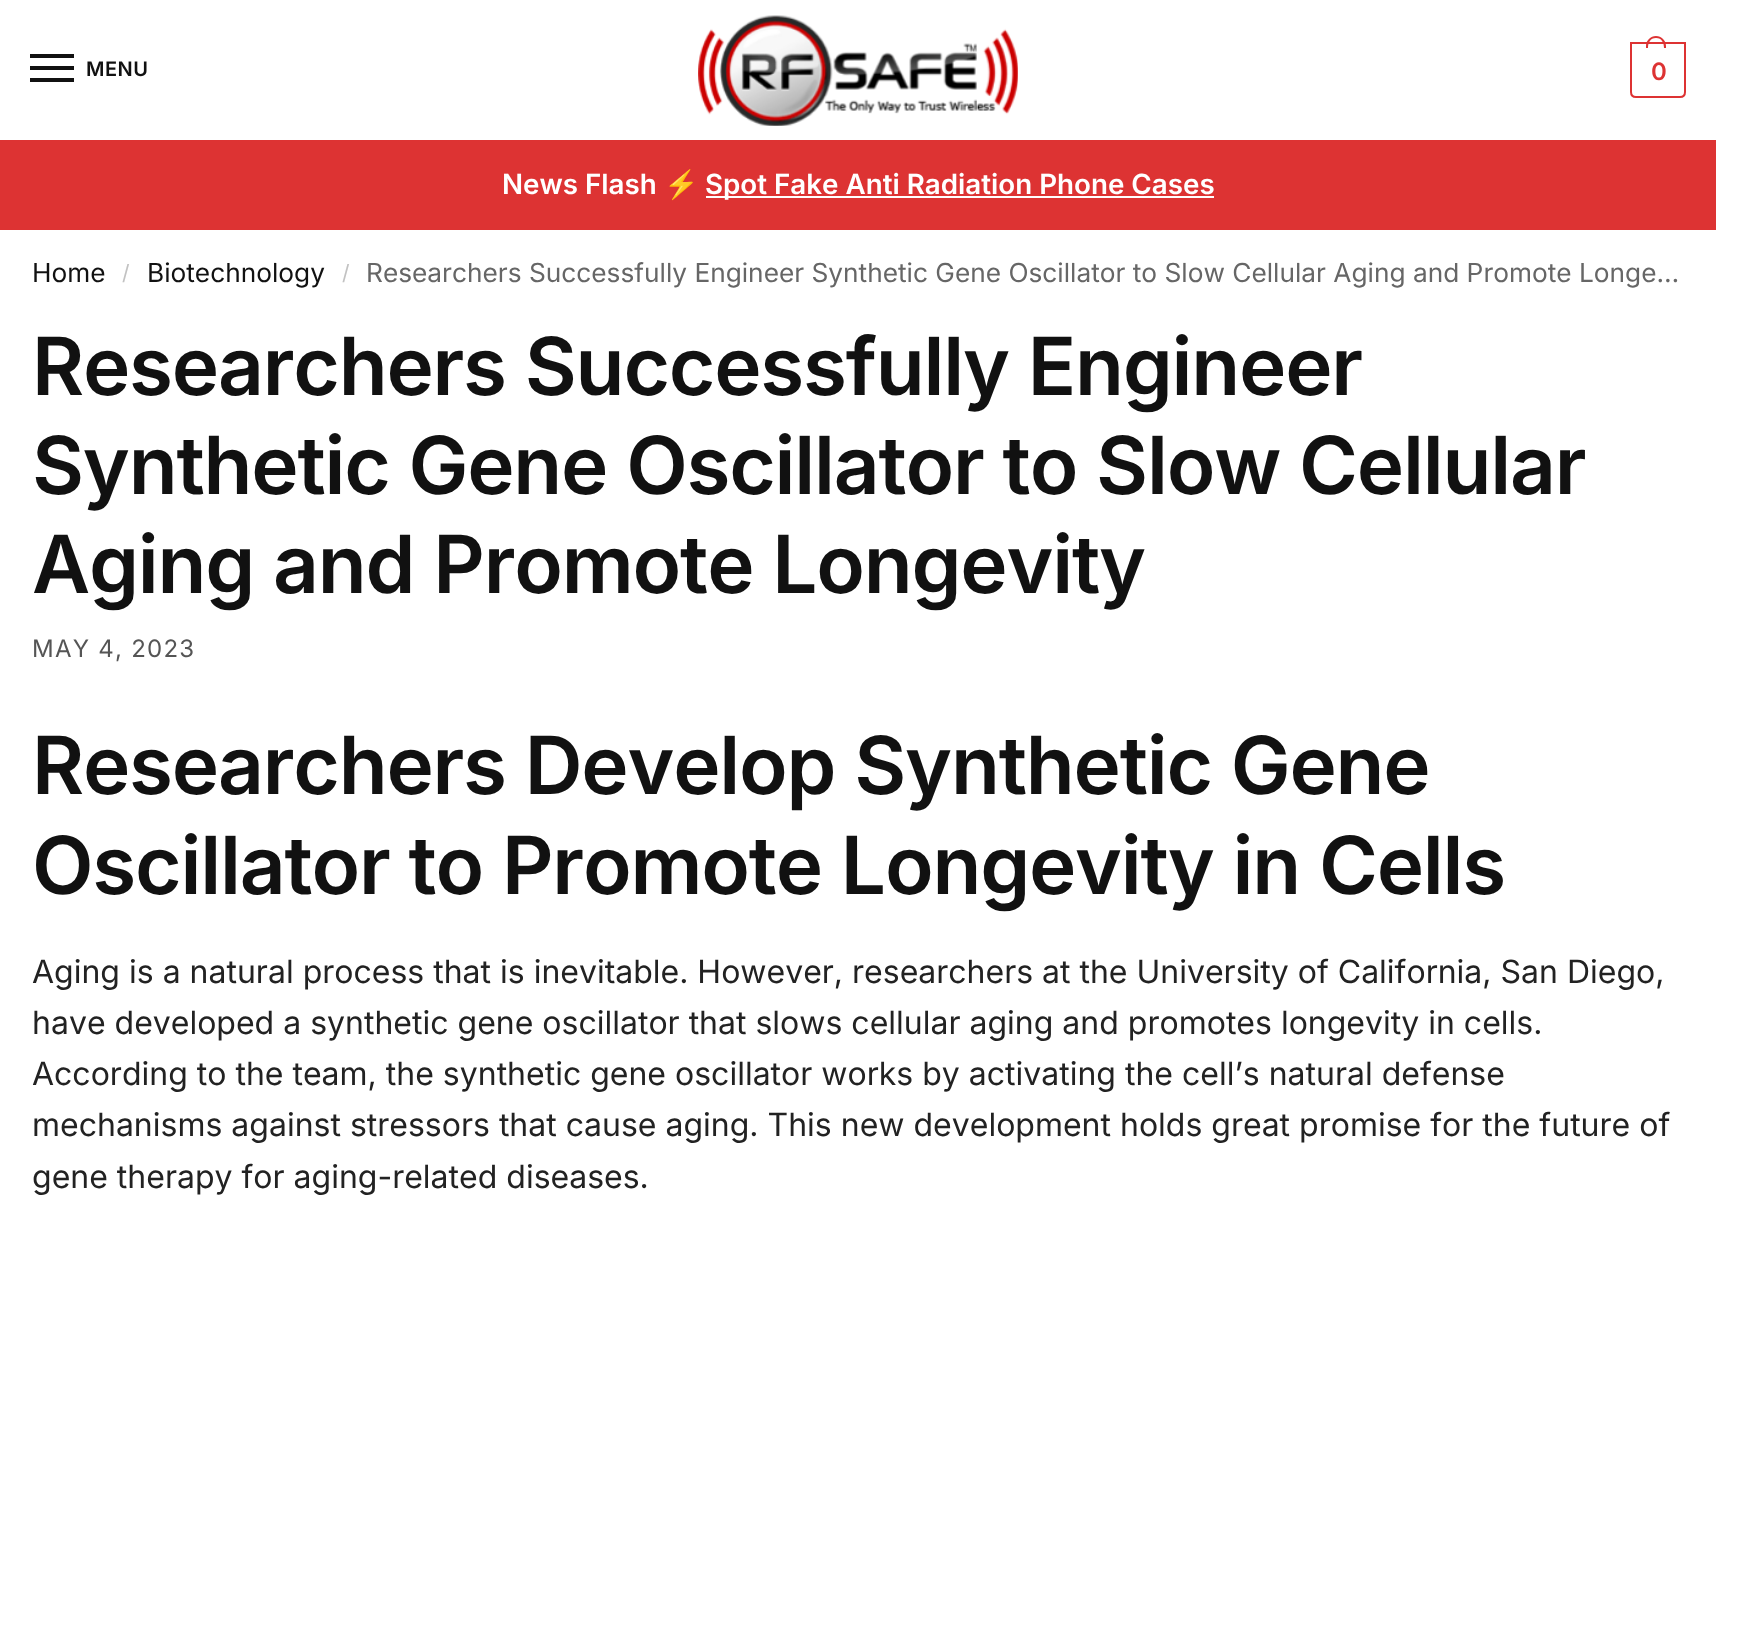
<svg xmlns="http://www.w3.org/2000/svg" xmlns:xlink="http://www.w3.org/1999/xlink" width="1746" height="1627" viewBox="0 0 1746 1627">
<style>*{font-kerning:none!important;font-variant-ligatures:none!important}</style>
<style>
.cls-1{font:600 20px Inter;letter-spacing:0.5px;fill:#111111}
.cls-2{font:600 24px Inter;letter-spacing:-1px;fill:#dd3333}
.cls-3{font:600 27.75px Inter;fill:#ffffff}
.cls-4{font:bold 27.75px Noto Color Emoji;fill:#ffffff}
.cls-5{font:26.25px Inter;fill:#111111}
.cls-6{font:21px Inter;fill:#c2c2c2}
.cls-7{font:26.25px Inter;fill:#666666}
.cls-8{font:600 80px Inter;letter-spacing:-1.2px;fill:#111111}
.cls-9{font:24px Inter;letter-spacing:1.25px;fill:#555555}
.cls-10{font:32px Inter;fill:#222222}
</style>
<rect width="100%" height="100%" fill="#ffffff"/>
<rect fill="#111111" x="30" y="54" width="44" height="4"/>
<rect fill="#111111" x="30" y="66" width="44" height="4"/>
<rect fill="#111111" x="30" y="78" width="44" height="4"/>
<image xlink:href="image0.png" x="698" y="15" width="320" height="111"/>
<path fill="none" stroke="#dd3333" stroke-width="2" d="M1631 43H1685V92C1685 95 1683 97 1680 97H1636C1633 97 1631 95 1631 92Z"/>
<path fill="#dd3333" fill-rule="evenodd" d="M1656 36C1661.5 36 1666 40.5 1666 46V48H1646V46C1646 40.5 1650.5 36 1656 36ZM1656 38C1662 38 1664 43 1664 48H1648C1648 43 1650 38 1656 38Z"/>
<rect fill="#dd3333" x="0" y="140" width="1716" height="90"/>
<rect fill="#ffffff" x="706" y="196" width="508" height="2"/>
<text class="cls-1" x="86" y="76">MENU</text>
<text class="cls-2" x="1651" y="80">0</text>
<text class="cls-3" x="502" y="194">News Flash</text>
<text class="cls-4" x="664" y="194">⚡</text>
<text class="cls-3" x="705" y="194">Spot Fake Anti Radiation Phone Cases</text>
<text class="cls-5" x="32" y="282">Home</text>
<text class="cls-6" x="122" y="280">/</text>
<text class="cls-5" x="147" y="282">Biotechnology</text>
<text class="cls-6" x="342" y="280">/</text>
<text class="cls-7" x="366" y="282">Researchers Successfully Engineer Synthetic Gene Oscillator to Slow Cellular Aging and Promote Longe…</text>
<text class="cls-8"><tspan x="32" y="395">Researchers Successfully Engineer</tspan><tspan x="32" y="494">Synthetic Gene Oscillator to Slow Cellular</tspan><tspan x="32" y="593">Aging and Promote Longevity</tspan></text>
<text class="cls-9" x="32" y="657">MAY 4, 2023</text>
<text class="cls-8"><tspan x="32" y="794">Researchers Develop Synthetic Gene</tspan><tspan x="32" y="894">Oscillator to Promote Longevity in Cells</tspan></text>
<text class="cls-10" x="32" y="983">Aging is a natural process that is inevitable. However, researchers</text>
<text class="cls-10" x="1042" y="983">at the University of California, San Diego,</text>
<text class="cls-10"><tspan x="32" y="1034">have developed a synthetic gene oscillator that slows cellular aging and promotes longevity in cells.</tspan><tspan x="32" y="1085">According to the team, the synthetic gene oscillator works by activating the cell’s natural defense</tspan><tspan x="32" y="1136">mechanisms against stressors that cause aging. This new development holds great promise for the future of</tspan><tspan x="32" y="1188">gene therapy for aging-related diseases.</tspan></text>
</svg>
